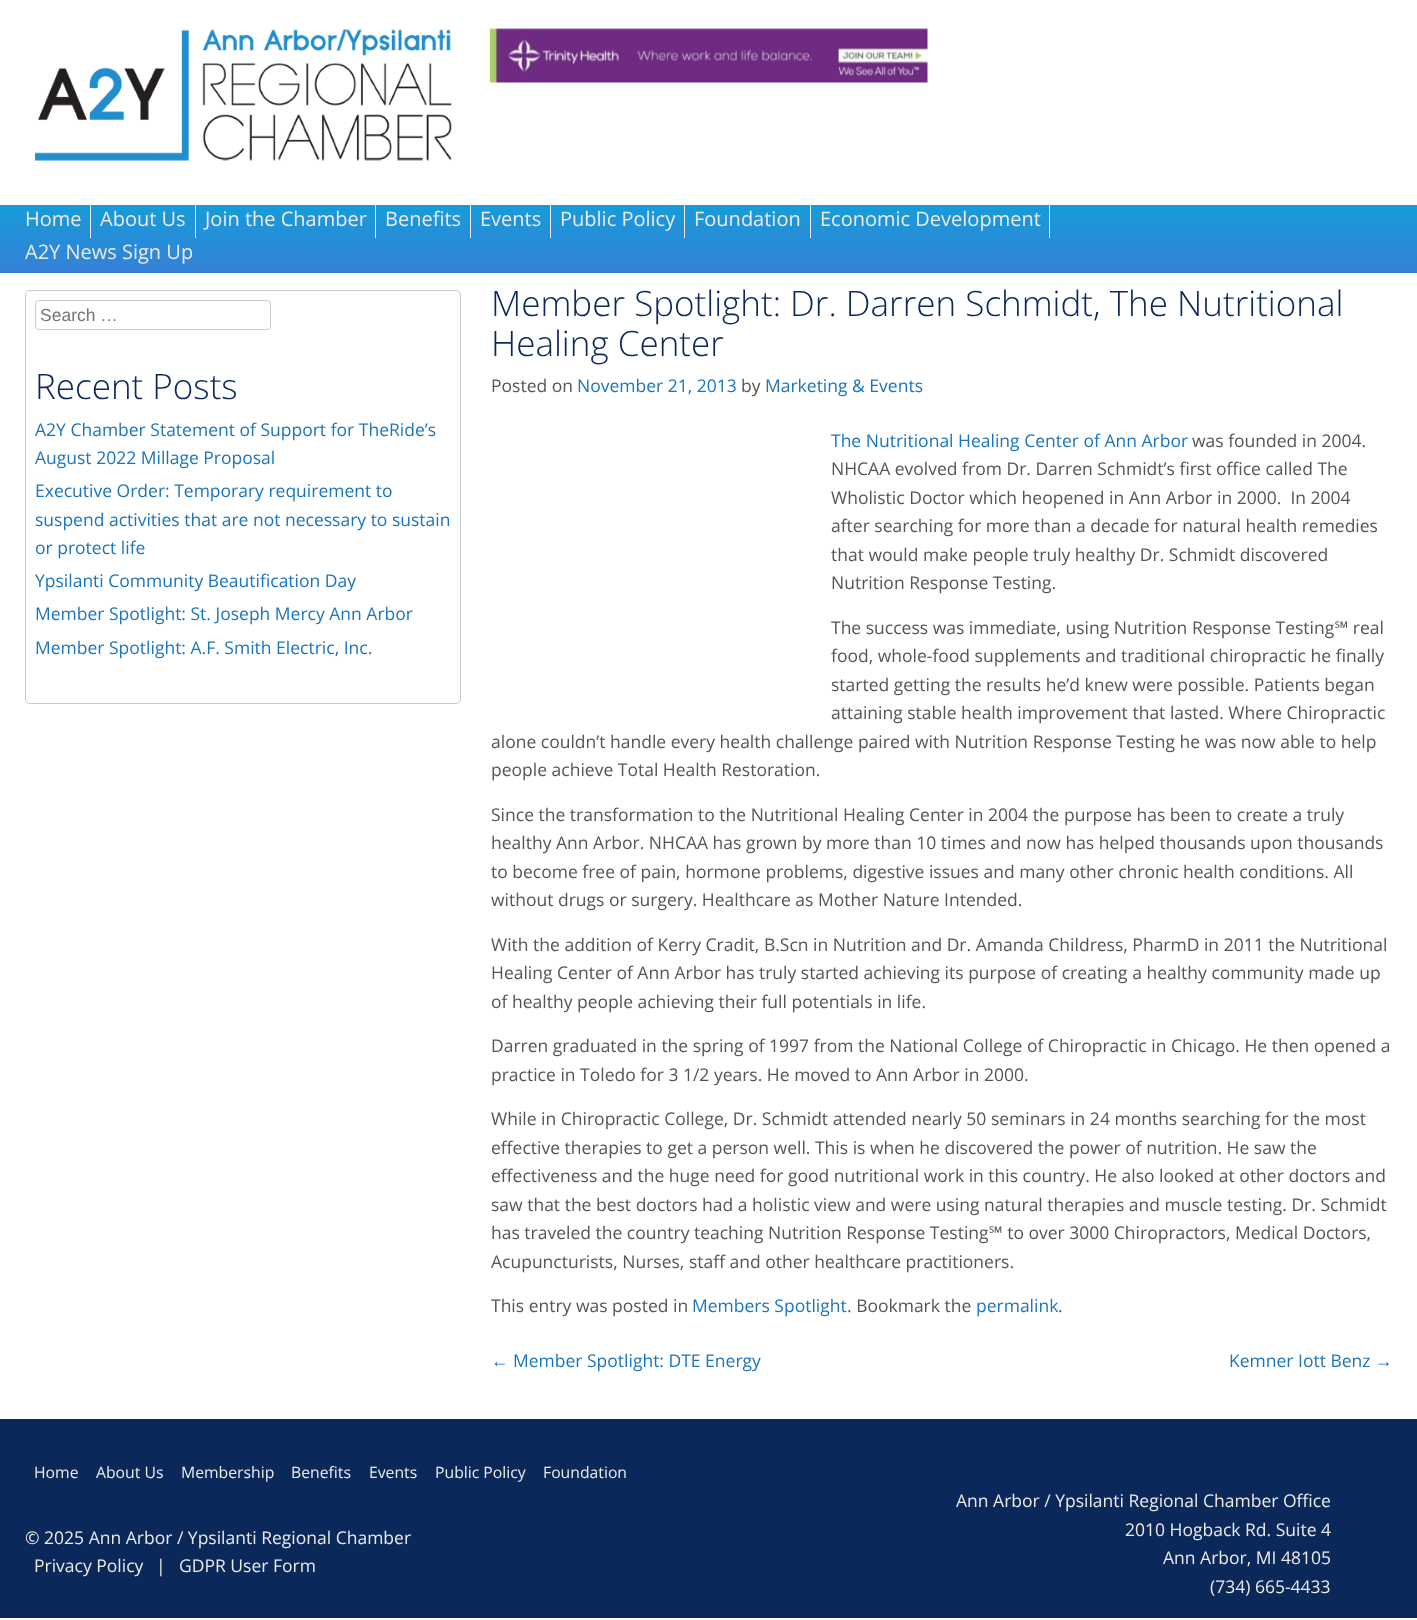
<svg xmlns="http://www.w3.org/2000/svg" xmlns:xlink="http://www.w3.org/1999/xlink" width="1417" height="1620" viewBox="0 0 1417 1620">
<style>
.cls-1{font:20px Open Sans;fill:#edeaea}
.cls-2{font:17.5px Liberation Sans;fill:#757575}
.cls-3{font:300 35px Open Sans;fill:#0a285a}
.cls-4{font:17.5px Open Sans;fill:#1b75bb}
.cls-5{font:17.5px Open Sans;fill:#555555}
.cls-6{font:17.5px Liberation Serif;fill:#1b75bb}
.cls-7{font:15.75px Open Sans;fill:#edeaea}
.cls-8{font:17.5px Open Sans;fill:#edeaea}
</style>
<defs>
<linearGradient id="g1" gradientUnits="userSpaceOnUse" x1="709" y1="205" x2="709" y2="273"><stop offset="0" stop-color="#179cd8"/><stop offset="1" stop-color="#3580d8"/></linearGradient>
</defs>
<rect width="100%" height="100%" fill="#ffffff"/>
<image xlink:href="image0.png" x="35" y="29" width="417" height="132"/>
<image xlink:href="image1.png" x="490" y="28" width="438" height="55"/>
<rect fill="url(#g1)" x="0" y="205" width="1417" height="68"/>
<rect fill="#edeaea" x="90" y="205" width="1" height="33"/>
<rect fill="#edeaea" x="195" y="205" width="1" height="33"/>
<rect fill="#edeaea" x="375" y="205" width="1" height="33"/>
<rect fill="#edeaea" x="470" y="205" width="1" height="33"/>
<rect fill="#edeaea" x="550" y="205" width="1" height="33"/>
<rect fill="#edeaea" x="684" y="205" width="1" height="33"/>
<rect fill="#edeaea" x="810" y="205" width="1" height="33"/>
<rect fill="#edeaea" x="1049" y="205" width="1" height="33"/>
<rect fill="none" stroke="#c6c9cc" x="25.5" y="290.5" width="435" height="413" rx="4.5"/>
<rect fill="none" stroke="#cccccc" x="35.5" y="300.5" width="235" height="29" rx="3.5"/>
<rect fill="#0a285a" x="0" y="1419" width="1417" height="199"/>
<text class="cls-1" x="25" y="226">Home</text>
<text class="cls-1" x="100" y="226">About Us</text>
<text class="cls-1" x="205" y="226">Join the Chamber</text>
<text class="cls-1" x="385" y="226">Benefits</text>
<text class="cls-1" x="480" y="226">Events</text>
<text class="cls-1" x="560" y="226">Public Policy</text>
<text class="cls-1" x="694" y="226">Foundation</text>
<text class="cls-1" x="820" y="226">Economic Development</text>
<text class="cls-1" x="25" y="259">A2Y News Sign Up</text>
<text class="cls-2" x="40" y="321">Search …</text>
<text class="cls-3" x="35" y="399">Recent Posts</text>
<text class="cls-4"><tspan x="35" y="436">A2Y Chamber Statement of Support for TheRide’s</tspan><tspan x="35" y="464">August 2022 Millage Proposal</tspan><tspan x="35" y="497">Executive Order: Temporary requirement to</tspan><tspan x="35" y="526">suspend activities that are not necessary to sustain</tspan><tspan x="35" y="554">or protect life</tspan><tspan x="35" y="587">Ypsilanti Community Beautification Day</tspan><tspan x="35" y="620">Member Spotlight: St. Joseph Mercy Ann Arbor</tspan><tspan x="35" y="654">Member Spotlight: A.F. Smith Electric, Inc.</tspan></text>
<text class="cls-3"><tspan x="491" y="316">Member Spotlight: Dr. Darren Schmidt, The Nutritional</tspan><tspan x="491" y="356">Healing Center</tspan></text>
<text class="cls-5" x="491" y="392">Posted on</text>
<text class="cls-4" x="577" y="392">November 21, 2013</text>
<text class="cls-5" x="741" y="392">by</text>
<text class="cls-4" x="765" y="392">Marketing &amp; Events</text>
<text class="cls-4" x="831" y="447">The Nutritional Healing Center of Ann Arbor</text>
<text class="cls-5" x="1192" y="447">was founded in 2004.</text>
<text class="cls-5" xml:space="preserve"><tspan x="831" y="475">NHCAA evolved from Dr. Darren Schmidt’s first office called The</tspan><tspan x="831" y="504">Wholistic Doctor which heopened in Ann Arbor in 2000.  In 2004</tspan><tspan x="831" y="532">after searching for more than a decade for natural health remedies</tspan><tspan x="831" y="561">that would make people truly healthy Dr. Schmidt discovered</tspan><tspan x="831" y="589">Nutrition Response Testing.</tspan></text>
<text class="cls-5"><tspan x="831" y="634">The success was immediate, using Nutrition Response Testing℠ real</tspan><tspan x="831" y="662">food, whole-food supplements and traditional chiropractic he finally</tspan><tspan x="831" y="691">started getting the results he’d knew were possible. Patients began</tspan><tspan x="831" y="719">attaining stable health improvement that lasted. Where Chiropractic</tspan></text>
<text class="cls-5"><tspan x="491" y="748">alone couldn’t handle every health challenge paired with Nutrition Response Testing he was now able to help</tspan><tspan x="491" y="776">people achieve Total Health Restoration.</tspan></text>
<text class="cls-5"><tspan x="491" y="821">Since the transformation to the Nutritional Healing Center in 2004 the purpose has been to create a truly</tspan><tspan x="491" y="849">healthy Ann Arbor. NHCAA has grown by more than 10 times and now has helped thousands upon thousands</tspan><tspan x="491" y="878">to become free of pain, hormone problems, digestive issues and many other chronic health conditions. All</tspan><tspan x="491" y="906">without drugs or surgery. Healthcare as Mother Nature Intended.</tspan></text>
<text class="cls-5"><tspan x="491" y="951">With the addition of Kerry Cradit, B.Scn in Nutrition and Dr. Amanda Childress, PharmD in 2011 the Nutritional</tspan><tspan x="491" y="979">Healing Center of Ann Arbor has truly started achieving its purpose of creating a healthy community made up</tspan><tspan x="491" y="1008">of healthy people achieving their full potentials in life.</tspan></text>
<text class="cls-5"><tspan x="491" y="1052">Darren graduated in the spring of 1997 from the National College of Chiropractic in Chicago. He then opened a</tspan><tspan x="491" y="1081">practice in Toledo for 3 1/2 years. He moved to Ann Arbor in 2000.</tspan></text>
<text class="cls-5"><tspan x="491" y="1125">While in Chiropractic College, Dr. Schmidt attended nearly 50 seminars in 24 months searching for the most</tspan><tspan x="491" y="1154">effective therapies to get a person well. This is when he discovered the power of nutrition. He saw the</tspan><tspan x="491" y="1182">effectiveness and the huge need for good nutritional work in this country. He also looked at other doctors and</tspan><tspan x="491" y="1211">saw that the best doctors had a holistic view and were using natural therapies and muscle testing. Dr. Schmidt</tspan><tspan x="491" y="1239">has traveled the country teaching Nutrition Response Testing℠ to over 3000 Chiropractors, Medical Doctors,</tspan><tspan x="491" y="1268">Acupuncturists, Nurses, staff and other healthcare practitioners.</tspan></text>
<text class="cls-5" x="491" y="1312">This entry was posted in</text>
<text class="cls-4" x="692" y="1312">Members Spotlight</text>
<text class="cls-5" x="847" y="1312">. Bookmark the</text>
<text class="cls-4" x="976" y="1312">permalink</text>
<text class="cls-5" x="1058" y="1312">.</text>
<text class="cls-6" x="491" y="1367">←</text>
<text class="cls-4" x="513" y="1367">Member Spotlight: DTE Energy</text>
<text class="cls-4" x="1229" y="1367">Kemner Iott Benz</text>
<text class="cls-6" x="1375" y="1367">→</text>
<text class="cls-7" x="34" y="1478">Home</text>
<text class="cls-7" x="96" y="1478">About Us</text>
<text class="cls-7" x="181" y="1478">Membership</text>
<text class="cls-7" x="291" y="1478">Benefits</text>
<text class="cls-7" x="369" y="1478">Events</text>
<text class="cls-7" x="435" y="1478">Public Policy</text>
<text class="cls-7" x="543" y="1478">Foundation</text>
<text class="cls-8" x="25" y="1544">© 2025 Ann Arbor / Ypsilanti Regional Chamber</text>
<text class="cls-8" x="34" y="1572">Privacy Policy</text>
<text class="cls-8" x="156" y="1572">|</text>
<text class="cls-8" x="179" y="1572">GDPR User Form</text>
<text class="cls-8" x="956" y="1507">Ann Arbor / Ypsilanti Regional Chamber Office</text>
<text class="cls-8" x="1125" y="1536">2010 Hogback Rd. Suite 4</text>
<text class="cls-8" x="1163" y="1564">Ann Arbor, MI 48105</text>
<text class="cls-8" x="1210" y="1593">(734) 665-4433</text>
</svg>
